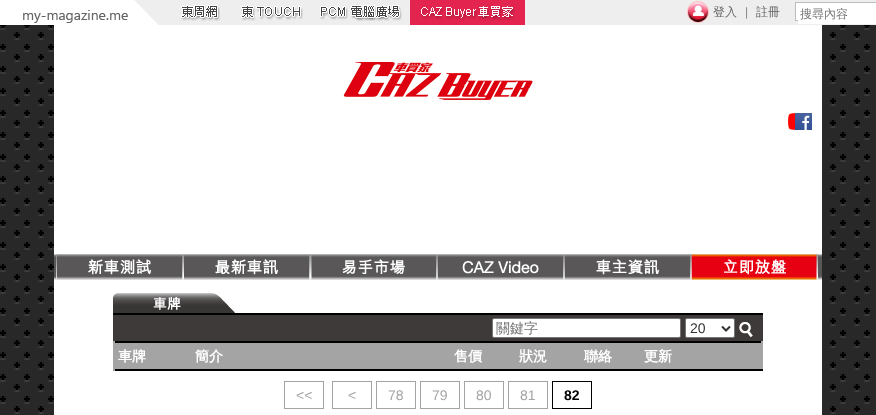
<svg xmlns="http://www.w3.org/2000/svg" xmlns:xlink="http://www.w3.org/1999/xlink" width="876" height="415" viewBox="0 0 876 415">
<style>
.cls-1{font:500 12px WenQuanYi Zen Hei;fill:#666666}
.cls-2{font:12px Liberation Sans;fill:#888888}
.cls-3{font:500 12px WenQuanYi Zen Hei;fill:#757575}
.cls-4{font:500 14px WenQuanYi Zen Hei;fill:#757575}
.cls-5{font:14px Liberation Sans;fill:#333333}
.cls-6{font:bold 14px WenQuanYi Zen Hei;fill:#ffffff}
.cls-7{font:14px Liberation Sans;fill:#a4a4a4}
.cls-8{font:bold 14px Liberation Sans;fill:#000000}
</style>
<rect width="100%" height="100%" fill="#ffffff"/>
<image xlink:href="image0.png" x="0" y="25" width="876" height="390"/>
<rect fill="#eeeeee" x="158" y="0" width="718" height="25"/>
<image xlink:href="image1.png" x="0" y="0" width="158" height="25"/>
<image xlink:href="image2.png" x="181" y="5" width="39" height="16"/>
<image xlink:href="image3.png" x="241" y="5" width="62" height="16"/>
<image xlink:href="image4.png" x="320" y="5" width="82" height="16"/>
<image xlink:href="image5.png" x="410" y="0" width="115" height="25"/>
<image xlink:href="image6.png" x="687" y="1" width="22" height="22"/>
<rect fill="#ffffff" stroke="#bcbdbf" x="795.5" y="2.5" width="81" height="18"/>
<rect fill="#ffffff" x="798" y="20" width="78" height="4"/>
<rect fill="#ffffff" x="54" y="25" width="768" height="390"/>
<image xlink:href="image7.png" x="343" y="61" width="190" height="39"/>
<image xlink:href="image8.png" x="788" y="113" width="7" height="17"/>
<image xlink:href="image9.png" x="795" y="113" width="17" height="17"/>
<image xlink:href="image10.png" x="54" y="254" width="768" height="26"/>
<image xlink:href="image11.png" x="56" y="254" width="127" height="26"/>
<image xlink:href="image12.png" x="183" y="254" width="127" height="26"/>
<image xlink:href="image13.png" x="310" y="254" width="127" height="26"/>
<image xlink:href="image14.png" x="437" y="254" width="127" height="26"/>
<image xlink:href="image15.png" x="564" y="254" width="127" height="26"/>
<image xlink:href="image16.png" x="691" y="254" width="127" height="26"/>
<rect fill="#000000" x="113" y="313" width="650" height="2"/>
<image xlink:href="image17.png" x="113" y="293" width="122" height="20"/>
<rect fill="#3e3a39" x="113" y="315" width="650" height="26"/>
<rect fill="#ffffff" stroke="#767676" x="492.5" y="318.5" width="188" height="19" rx="1.5"/>
<rect fill="#ffffff" stroke="#767676" x="685.5" y="318.5" width="49" height="19" rx="1.5"/>
<path fill="none" stroke="#333333" stroke-width="2" d="M722 326.5L726 330.5L730 326.5"/>
<image xlink:href="image18.png" x="739" y="322" width="14" height="15"/>
<rect fill="#000000" x="113" y="341" width="650" height="2"/>
<rect fill="#a4a4a4" x="761" y="341" width="2" height="30"/>
<rect fill="#000000" x="113" y="369" width="650" height="2"/>
<rect fill="#a4a4a4" x="113" y="341" width="2" height="30"/>
<rect fill="#a4a4a4" x="115" y="343" width="646" height="26"/>
<rect fill="none" stroke="#a4a4a4" x="284.5" y="381.5" width="39" height="27"/>
<rect fill="none" stroke="#a4a4a4" x="332.5" y="381.5" width="39" height="27"/>
<rect fill="none" stroke="#a4a4a4" x="376.5" y="381.5" width="39" height="27"/>
<rect fill="none" stroke="#a4a4a4" x="420.5" y="381.5" width="39" height="27"/>
<rect fill="none" stroke="#a4a4a4" x="464.5" y="381.5" width="39" height="27"/>
<rect fill="none" stroke="#a4a4a4" x="508.5" y="381.5" width="39" height="27"/>
<rect fill="none" stroke="#000000" x="552.5" y="381.5" width="39" height="27"/>
<text class="cls-1" x="713" y="16">登入</text>
<text class="cls-2" x="745" y="16">|</text>
<text class="cls-1" x="756" y="16">註冊</text>
<text class="cls-3" x="800" y="18">搜尋內容</text>
<text class="cls-4" x="496" y="333">關鍵字</text>
<text class="cls-5" x="690" y="333">20</text>
<text class="cls-6" x="118" y="361">車牌</text>
<text class="cls-6" x="195" y="361">簡介</text>
<text class="cls-6" x="454" y="361">售價</text>
<text class="cls-6" x="519" y="361">狀況</text>
<text class="cls-6" x="584" y="361">聯絡</text>
<text class="cls-6" x="644" y="361">更新</text>
<text class="cls-7" x="296" y="400">&lt;&lt;</text>
<text class="cls-7" x="348" y="400">&lt;</text>
<text class="cls-7" x="388" y="400">78</text>
<text class="cls-7" x="432" y="400">79</text>
<text class="cls-7" x="476" y="400">80</text>
<text class="cls-7" x="520" y="400">81</text>
<text class="cls-8" x="564" y="400">82</text>
</svg>
